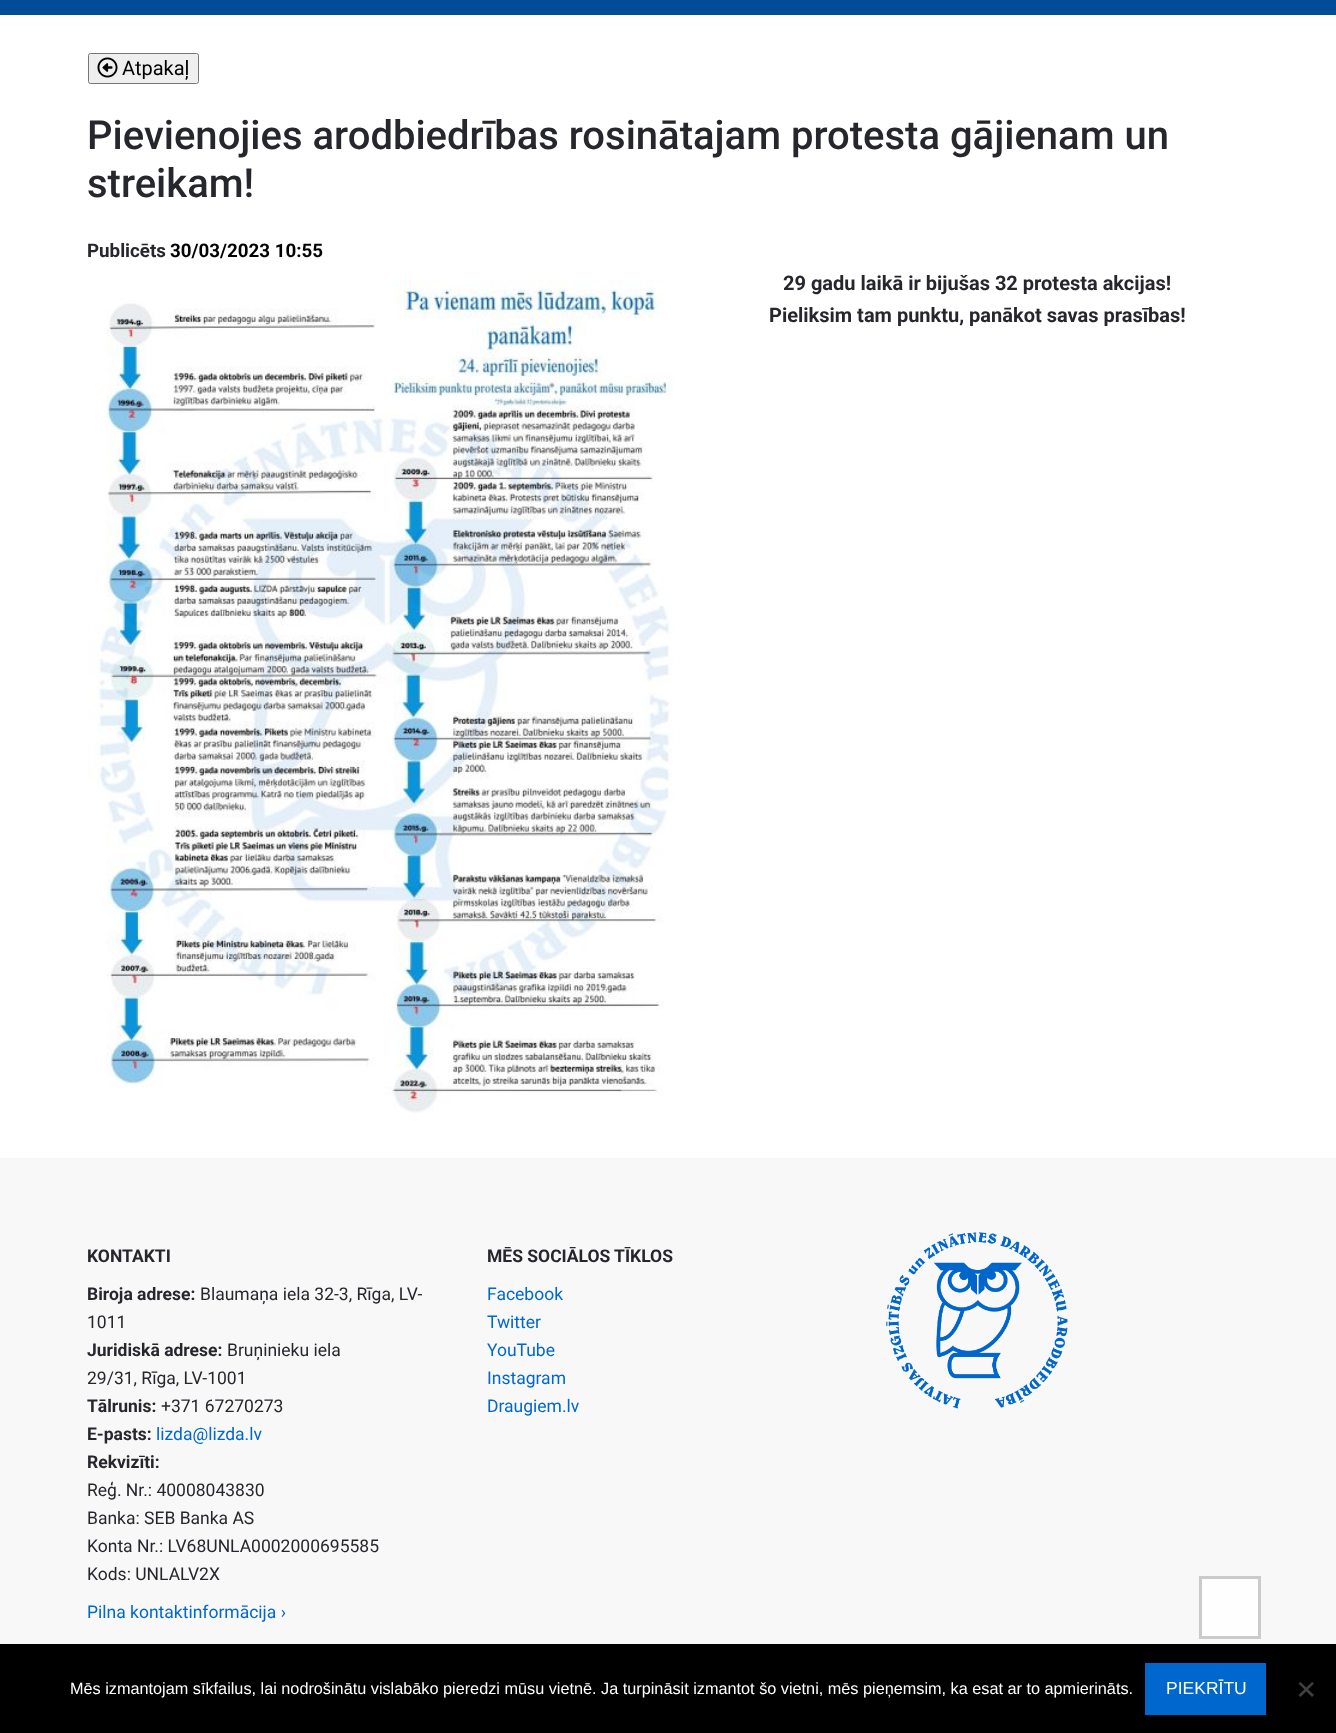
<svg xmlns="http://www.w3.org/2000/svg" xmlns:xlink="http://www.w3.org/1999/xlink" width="1336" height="1733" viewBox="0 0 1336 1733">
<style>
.cls-1{font:20px Roboto;fill:#000000}
.cls-2{font:500 40px Roboto;fill:#26262d}
.cls-3{font:bold 18.75px Roboto;fill:#26262d}
.cls-4{font:bold 18.75px Roboto;fill:#000000}
.cls-5{font:bold 20px Roboto;fill:#26262d}
.cls-6{font:bold 17.5px Roboto;fill:#26262d}
.cls-7{font:17.5px Roboto;fill:#26262d}
.cls-8{font:17.5px Roboto;fill:#0067ce}
.cls-9{font:16.25px Liberation Sans;fill:#ffffff}
.cls-10{font:17.5px Liberation Sans;fill:#ffffff}
</style>
<rect width="100%" height="100%" fill="#ffffff"/>
<rect fill="#004c97" x="0" y="0" width="1336" height="15"/>
<rect fill="#efefef" stroke="#767676" x="88.5" y="53.5" width="110" height="30" rx="2"/>
<image xlink:href="image0.png" x="97" y="57" width="21" height="21"/>
<image xlink:href="image1.png" x="88" y="279" width="585" height="834"/>
<rect fill="#f8f8f8" x="0" y="1158" width="1336" height="486"/>
<image xlink:href="image2.png" x="886" y="1232" width="182" height="177"/>
<rect fill="#fefefe" stroke="#cbcbcb" stroke-width="3" x="1200.5" y="1577.5" width="59" height="60"/>
<rect fill="#000000" x="0" y="1644" width="1336" height="89"/>
<rect fill="#0067ce" x="1145" y="1663" width="121" height="52"/>
<path fill="#404040" d="M1312 1682L1314 1683.5L1300.5 1697L1298.5 1695Z"/>
<path fill="#404040" d="M1298.5 1683.5L1300.5 1682L1314 1695L1312 1697Z"/>
<text class="cls-1" x="122" y="75">Atpakaļ</text>
<text class="cls-2"><tspan x="87" y="149">Pievienojies arodbiedrības rosinātajam protesta gājienam un</tspan><tspan x="87" y="197">streikam!</tspan></text>
<text class="cls-3" x="87" y="257">Publicēts</text>
<text class="cls-4" x="170" y="257">30/03/2023 10:55</text>
<text class="cls-5" x="783" y="290">29 gadu laikā ir bijušas 32 protesta akcijas!</text>
<text class="cls-5" x="769" y="322">Pieliksim tam punktu, panākot savas prasības!</text>
<text class="cls-6" x="87" y="1262">KONTAKTI</text>
<text class="cls-6" x="87" y="1300">Biroja adrese:</text>
<text class="cls-7" x="200" y="1300">Blaumaņa iela 32-3, Rīga, LV-</text>
<text class="cls-7" x="87" y="1328">1011</text>
<text class="cls-6" x="87" y="1356">Juridiskā adrese:</text>
<text class="cls-7" x="227" y="1356">Bruņinieku iela</text>
<text class="cls-7" x="87" y="1384">29/31, Rīga, LV-1001</text>
<text class="cls-6" x="87" y="1412">Tālrunis:</text>
<text class="cls-7" x="161" y="1412">+371 67270273</text>
<text class="cls-6" x="87" y="1440">E-pasts:</text>
<text class="cls-8" x="156" y="1440">lizda@lizda.lv</text>
<text class="cls-6" x="87" y="1468">Rekvizīti:</text>
<text class="cls-7"><tspan x="87" y="1496">Reģ. Nr.: 40008043830</tspan><tspan x="87" y="1524">Banka: SEB Banka AS</tspan><tspan x="87" y="1552">Konta Nr.: LV68UNLA0002000695585</tspan><tspan x="87" y="1580">Kods: UNLALV2X</tspan></text>
<text class="cls-8" x="87" y="1618">Pilna kontaktinformācija ›</text>
<text class="cls-6" x="487" y="1262">MĒS SOCIĀLOS TĪKLOS</text>
<text class="cls-8"><tspan x="487" y="1300">Facebook</tspan><tspan x="487" y="1328">Twitter</tspan><tspan x="487" y="1356">YouTube</tspan><tspan x="487" y="1384">Instagram</tspan><tspan x="487" y="1412">Draugiem.lv</tspan></text>
<text class="cls-9" x="70" y="1694">Mēs izmantojam sīkfailus, lai nodrošinātu vislabāko pieredzi mūsu vietnē. Ja turpināsit izmantot šo vietni, mēs pieņemsim, ka esat ar to apmierināts.</text>
<text class="cls-10" x="1166" y="1694">PIEKRĪTU</text>
</svg>
